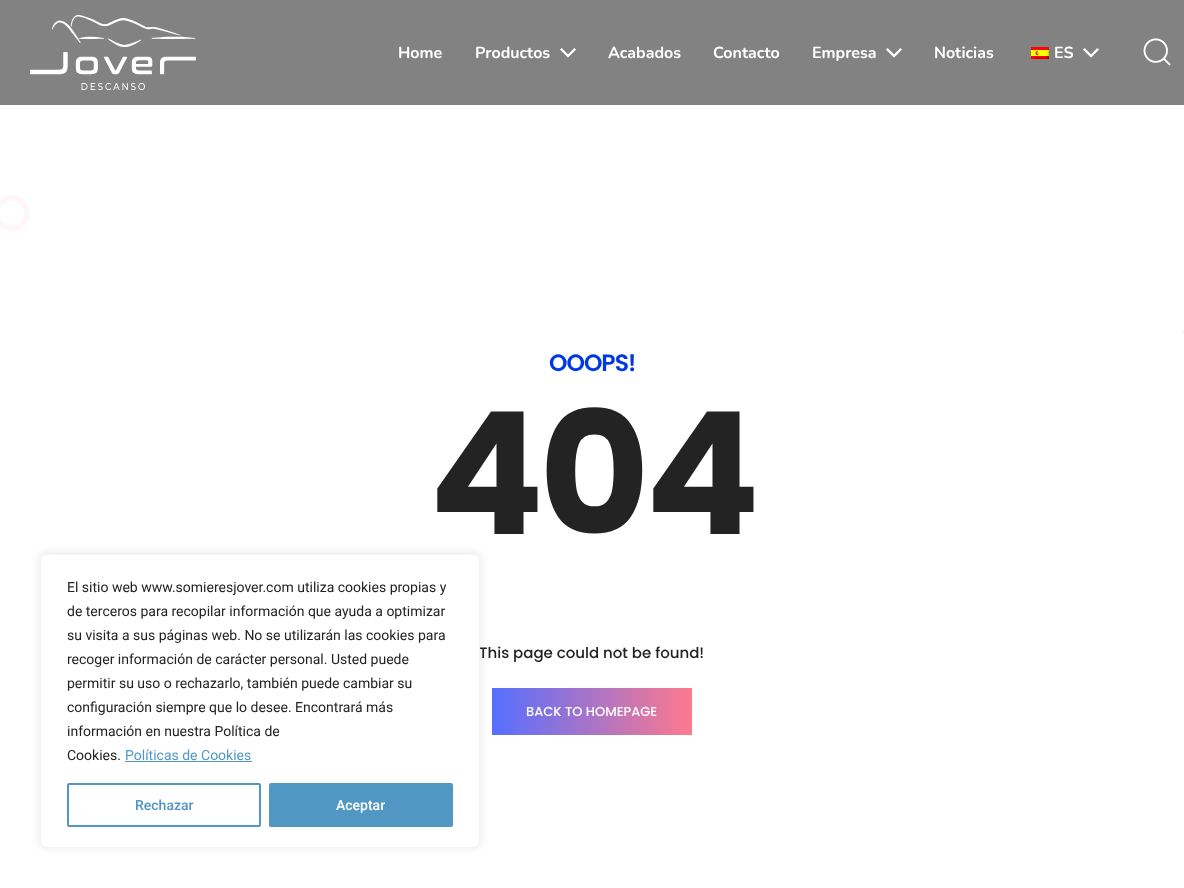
<svg xmlns="http://www.w3.org/2000/svg" xmlns:xlink="http://www.w3.org/1999/xlink" width="1184" height="888" viewBox="0 0 1184 888">
<style>
.cls-1{font:bold 16px Nunito;fill:#ffffff}
.cls-2{font:600 23.5px Poppins;letter-spacing:-1px;fill:#0038e3}
.cls-3{font:bold 170px Poppins;letter-spacing:-5px;fill:#232323}
.cls-4{font:500 15px Poppins;fill:#232323}
.cls-5{font:500 14px Roboto;fill:#ffffff}
.cls-6{font:500 14px Roboto;fill:#5097c4}
.cls-7{font:14px Roboto;fill:#5097c4}
.cls-8{font:14px Roboto;fill:#232323}
.cls-9{font:500 13px Poppins;fill:#ffffff}
</style>
<defs>
<linearGradient id="g1" gradientUnits="userSpaceOnUse" x1="492" y1="712" x2="892" y2="712"><stop offset="0" stop-color="#556fff"/><stop offset="0.5" stop-color="#ff798e"/><stop offset="1" stop-color="#556fff"/></linearGradient>
</defs>
<rect width="100%" height="100%" fill="#ffffff"/>
<rect fill="#828282" x="0" y="0" width="1184" height="105"/>
<image xlink:href="image0.png" x="30" y="15" width="166" height="75"/>
<image xlink:href="image1.png" x="560" y="48" width="16" height="10"/>
<image xlink:href="image1.png" x="886" y="48" width="16" height="10"/>
<image xlink:href="image2.png" x="1031" y="47" width="18" height="12"/>
<image xlink:href="image1.png" x="1083" y="48" width="16" height="10"/>
<image xlink:href="image3.png" x="1143" y="38" width="28" height="28"/>
<rect fill="url(#g1)" x="492" y="688" width="200" height="47"/>
<rect fill="#acabab" fill-opacity="0.3" filter="blur(5px)" x="40" y="553" width="440" height="294" rx="6"/>
<image xlink:href="image4.png" x="0" y="195" width="1184" height="140"/>
<text class="cls-1" x="398" y="58">Home</text>
<text class="cls-1" x="475" y="58">Productos</text>
<text class="cls-1" x="608" y="58">Acabados</text>
<text class="cls-1" x="713" y="58">Contacto</text>
<text class="cls-1" x="812" y="58">Empresa</text>
<text class="cls-1" x="934" y="58">Noticias</text>
<text class="cls-1" x="1054" y="58">ES</text>
<text class="cls-2" x="549" y="371">OOOPS!</text>
<text class="cls-3" x="429" y="534">404</text>
<text class="cls-4" x="479" y="658">This page could not be found!</text>
<rect fill="#ffffff" stroke="#f4f4f4" x="40.5" y="554.5" width="439" height="293" rx="5.5"/>
<rect fill="#5097c4" stroke="#5097c4" stroke-width="2" x="270" y="784" width="182" height="42" rx="1"/>
<text class="cls-5" x="336" y="810">Aceptar</text>
<rect fill="none" stroke="#5097c4" stroke-width="2" x="68" y="784" width="192" height="42" rx="1"/>
<text class="cls-6" x="135" y="810">Rechazar</text>
<text class="cls-7" x="125" y="760">Políticas de Cookies</text>
<rect fill="#5097c4" x="125" y="761" width="127" height="1"/>
<text class="cls-8" x="67" y="760">Cookies.</text>
<text class="cls-8" x="67" y="736">información en nuestra Política de</text>
<text class="cls-8" x="67" y="712">configuración siempre que lo desee. Encontrará más</text>
<text class="cls-8" x="67" y="688">permitir su uso o rechazarlo, también puede cambiar su</text>
<text class="cls-8" x="67" y="664">recoger información de carácter personal. Usted puede</text>
<text class="cls-8" x="67" y="640">su visita a sus páginas web. No se utilizarán las cookies para</text>
<text class="cls-8" x="67" y="616">de terceros para recopilar información que ayuda a optimizar</text>
<text class="cls-8" x="67" y="592">El sitio web www.somieresjover.com utiliza cookies propias y</text>
<text class="cls-9" x="526" y="716">BACK TO HOMEPAGE</text>
</svg>
